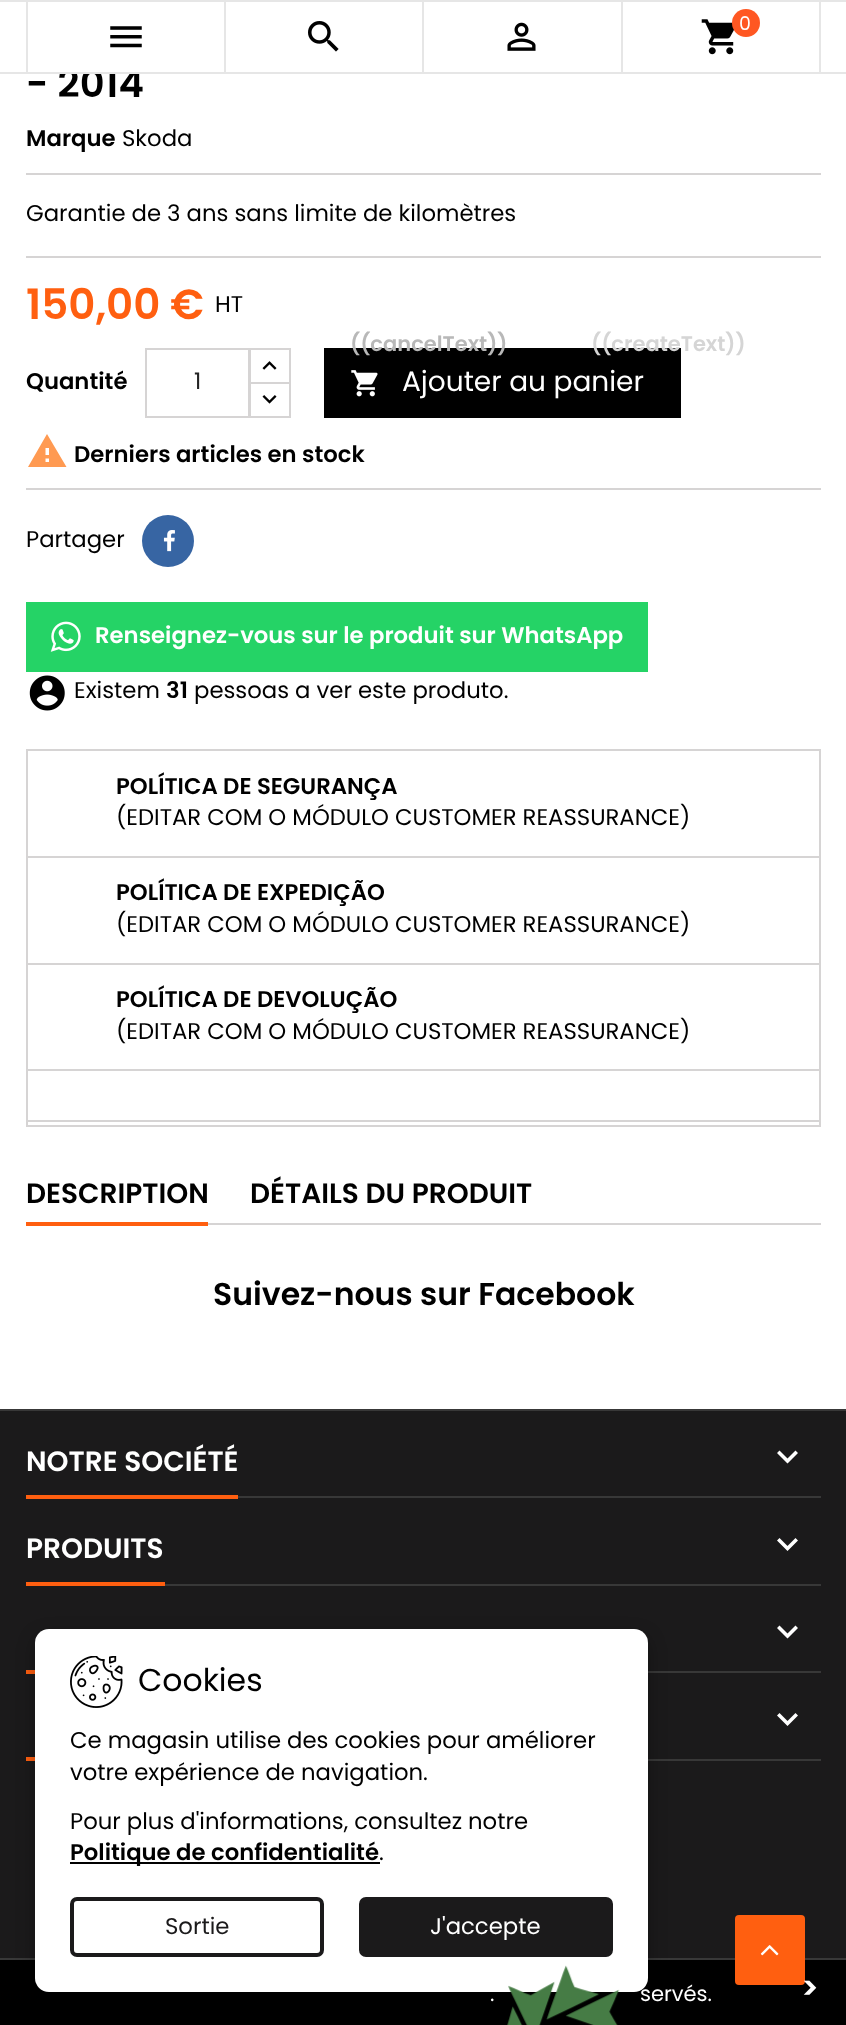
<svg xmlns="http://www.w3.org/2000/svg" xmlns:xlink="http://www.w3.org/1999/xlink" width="846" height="2025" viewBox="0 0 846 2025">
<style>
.cls-1{font:19px Poppins;fill:#ffffff}
.cls-2{font:600 38.5px Poppins;fill:#000000}
.cls-3{font:600 22.75px Poppins;fill:#000000}
.cls-4{font:22.75px Poppins;fill:#000000}
.cls-5{font:600 42px Poppins;fill:#ff5f10}
.cls-6{font:22.75px Poppins;fill:#232323}
.cls-7{font:28px Poppins;fill:#ffffff}
.cls-8{font:600 22.75px Poppins;fill:#ffffff}
.cls-9{font:600 28px Poppins;fill:#000000}
.cls-10{font:600 31.5px Poppins;fill:#000000}
.cls-11{font:600 21px Poppins;fill:#b8b8b8}
.cls-12{font:600 21px Poppins;fill:#d5d5d5}
.cls-13{font:600 28px Poppins;fill:#ffffff}
.cls-14{font:31.5px Poppins;fill:#000000}
.cls-15{font:22.75px Poppins;fill:#1b1a1b}
.cls-16{font:22.75px Poppins;fill:#ffffff}
.cls-17{font:21px Poppins;fill:#ffffff}
.cls-18{font:600 31.5px Poppins;fill:#ffffff}
</style>
<rect width="100%" height="100%" fill="#ffffff"/>
<rect fill="#e6e6e6" x="0" y="0" width="846" height="2"/>
<rect fill="#e6e6e6" x="224" y="2" width="2" height="70"/>
<rect fill="#e6e6e6" x="26" y="2" width="2" height="70"/>
<image xlink:href="image0.png" x="110" y="26" width="32" height="22"/>
<rect fill="#e6e6e6" x="422" y="2" width="2" height="70"/>
<image xlink:href="image1.png" x="308" y="21" width="31" height="31"/>
<rect fill="#e6e6e6" x="621" y="2" width="2" height="70"/>
<image xlink:href="image2.png" x="507" y="22" width="29" height="29"/>
<rect fill="#e6e6e6" x="819" y="2" width="2" height="70"/>
<image xlink:href="image3.png" x="701" y="19" width="33" height="36"/>
<circle fill="#ff5722" cx="746" cy="23" r="14"/>
<rect fill="#d6d4d4" x="26" y="173" width="795" height="2"/>
<rect fill="#d6d4d4" x="26" y="256" width="795" height="2"/>
<rect fill="none" stroke="#d6d4d4" stroke-width="2" x="250" y="349" width="40" height="35"/>
<rect fill="#ffffff" x="251" y="384" width="38" height="1"/>
<rect fill="none" stroke="#d6d4d4" stroke-width="2" x="250" y="383" width="40" height="34"/>
<rect fill="none" stroke="#d6d4d4" stroke-width="2" x="146" y="349" width="103" height="68"/>
<image xlink:href="image4.png" x="262" y="361" width="15" height="9"/>
<image xlink:href="image5.png" x="262" y="395" width="15" height="9"/>
<rect fill="#000000" x="324" y="348" width="357" height="70"/>
<image xlink:href="image6.png" x="351" y="370" width="27" height="27"/>
<path fill="#ff9a52" d="M49 455V448H45.5V455ZM49 462V458.5H45.5V462ZM28 467L47 434L66.5 467Z"/>
<rect fill="#d6d4d4" x="26" y="488" width="795" height="2"/>
<circle fill="#3765a3" cx="168" cy="541" r="26"/>
<image xlink:href="image7.png" x="163" y="530" width="12" height="22"/>
<rect fill="#25d366" x="26" y="602" width="622" height="70"/>
<image xlink:href="image8.png" x="50" y="621" width="31" height="31"/>
<image xlink:href="image9.png" x="29" y="675" width="36" height="36"/>
<rect fill="none" stroke="#d6d4d4" stroke-width="2" x="27" y="750" width="793" height="376"/>
<rect fill="#d6d4d4" x="28" y="856" width="791" height="2"/>
<rect fill="#d6d4d4" x="28" y="963" width="791" height="2"/>
<rect fill="#d6d4d4" x="28" y="1069" width="791" height="2"/>
<rect fill="#d6d4d4" x="28" y="1120" width="791" height="2"/>
<rect fill="#d6d4d4" x="208" y="1223" width="613" height="2"/>
<rect fill="#ff5f10" x="26" y="1222" width="182" height="4"/>
<rect fill="#1b1a1b" x="0" y="1411" width="846" height="547"/>
<rect fill="#383838" x="0" y="1409" width="846" height="2"/>
<rect fill="#383838" x="238" y="1496" width="583" height="2"/>
<rect fill="#ff5f10" x="26" y="1495" width="212" height="4"/>
<path fill="#ffffff" d="M779.5 1450.5L787.5 1458.5L795.5 1450.5L798 1453L787.5 1463.5L777 1453Z"/>
<rect fill="#383838" x="165" y="1584" width="656" height="2"/>
<rect fill="#ff5f10" x="26" y="1582" width="139" height="4"/>
<path fill="#ffffff" d="M779.5 1538L787.5 1546L795.5 1538L798 1540.5L787.5 1551L777 1540.5Z"/>
<rect fill="#383838" x="648" y="1671" width="173" height="2"/>
<path fill="#ffffff" d="M779.5 1625.5L787.5 1633.5L795.5 1625.5L798 1628L787.5 1638.5L777 1628Z"/>
<rect fill="#ff5f10" x="26" y="1670" width="9" height="4"/>
<rect fill="#383838" x="648" y="1759" width="173" height="2"/>
<rect fill="#ff5f10" x="26" y="1757" width="9" height="4"/>
<rect fill="#000000" x="0" y="1960" width="846" height="65"/>
<rect fill="#383838" x="0" y="1958" width="846" height="2"/>
<rect fill="#000000" fill-opacity="0.3" filter="blur(9px)" x="35" y="1636" width="613" height="363" rx="14"/>
<rect fill="#ffffff" x="35" y="1629" width="613" height="363" rx="14"/>
<image xlink:href="image10.png" x="70" y="1656" width="53" height="52"/>
<rect fill="#000000" x="70" y="1862" width="310" height="2"/>
<rect fill="none" stroke="#1b1a1b" stroke-width="4" x="72" y="1899" width="250" height="56" rx="5"/>
<rect fill="#1b1a1b" stroke="#1b1a1b" stroke-width="4" x="361" y="1899" width="250" height="56" rx="5"/>
<path fill="#ffffff" d="M779.5 1713L787.5 1721L795.5 1713L798 1715.5L787.5 1726L777 1715.5Z"/>
<rect fill="#ff5f10" x="735" y="1915" width="70" height="70" rx="4"/>
<image xlink:href="image11.png" x="760" y="1945" width="19" height="11"/>
<image xlink:href="image12.png" x="507" y="1965" width="113" height="60"/>
<text class="cls-1" x="739" y="30">0</text>
<text class="cls-2" x="26" y="97">- 2014</text>
<rect fill="#e6e6e6" x="0" y="72" width="846" height="2"/>
<rect fill="#ffffff" x="61" y="68" width="79" height="4"/>
<text class="cls-3" x="26" y="146">Marque</text>
<text class="cls-4" x="122" y="146">Skoda</text>
<text class="cls-4" x="26" y="221">Garantie de 3 ans sans limite de kilomètres</text>
<text class="cls-5" x="26" y="319">150,00 €</text>
<text class="cls-4" x="215" y="312">HT</text>
<text class="cls-3" x="26" y="389">Quantité</text>
<text class="cls-6" x="194" y="389">1</text>
<text class="cls-7" x="402" y="391">Ajouter au panier</text>
<text class="cls-3" x="74" y="462">Derniers articles en stock</text>
<text class="cls-4" x="26" y="547">Partager</text>
<text class="cls-8" x="95" y="643">Renseignez-vous sur le produit sur WhatsApp</text>
<text class="cls-4" x="74" y="698">Existem</text>
<text class="cls-3" x="166" y="698">31</text>
<text class="cls-4" x="194" y="698">pessoas a ver este produto.</text>
<text class="cls-3" x="116" y="794">POLÍTICA DE SEGURANÇA</text>
<text class="cls-4" x="116" y="825">(EDITAR COM O MÓDULO CUSTOMER REASSURANCE)</text>
<text class="cls-3" x="116" y="900">POLÍTICA DE EXPEDIÇÃO</text>
<text class="cls-4" x="116" y="932">(EDITAR COM O MÓDULO CUSTOMER REASSURANCE)</text>
<text class="cls-3" x="116" y="1007">POLÍTICA DE DEVOLUÇÃO</text>
<text class="cls-4" x="116" y="1039">(EDITAR COM O MÓDULO CUSTOMER REASSURANCE)</text>
<text class="cls-9" x="26" y="1203">DESCRIPTION</text>
<text class="cls-9" x="250" y="1203">DÉTAILS DU PRODUIT</text>
<text class="cls-10" x="213" y="1305">Suivez-nous sur Facebook</text>
<text class="cls-11" x="350" y="351">((cancelText))</text>
<text class="cls-12" x="591" y="351">((createText))</text>
<text class="cls-13" x="26" y="1471">NOTRE SOCIÉTÉ</text>
<text class="cls-13" x="26" y="1558">PRODUITS</text>
<text class="cls-14" x="138" y="1691">Cookies</text>
<text class="cls-4"><tspan x="70" y="1748">Ce magasin utilise des cookies pour améliorer</tspan><tspan x="70" y="1780">votre expérience de navigation.</tspan></text>
<text class="cls-4" x="70" y="1829">Pour plus d'informations, consultez notre</text>
<text class="cls-3" x="70" y="1860">Politique de confidentialité</text>
<text class="cls-4" x="379" y="1860">.</text>
<text class="cls-15" x="165" y="1934">Sortie</text>
<text class="cls-16" x="430" y="1934">J'accepte</text>
<text class="cls-17" x="490" y="2001">.</text>
<text class="cls-17" x="640" y="2001">servés.</text>
<text class="cls-18" x="801" y="1999">&gt;</text>
</svg>
